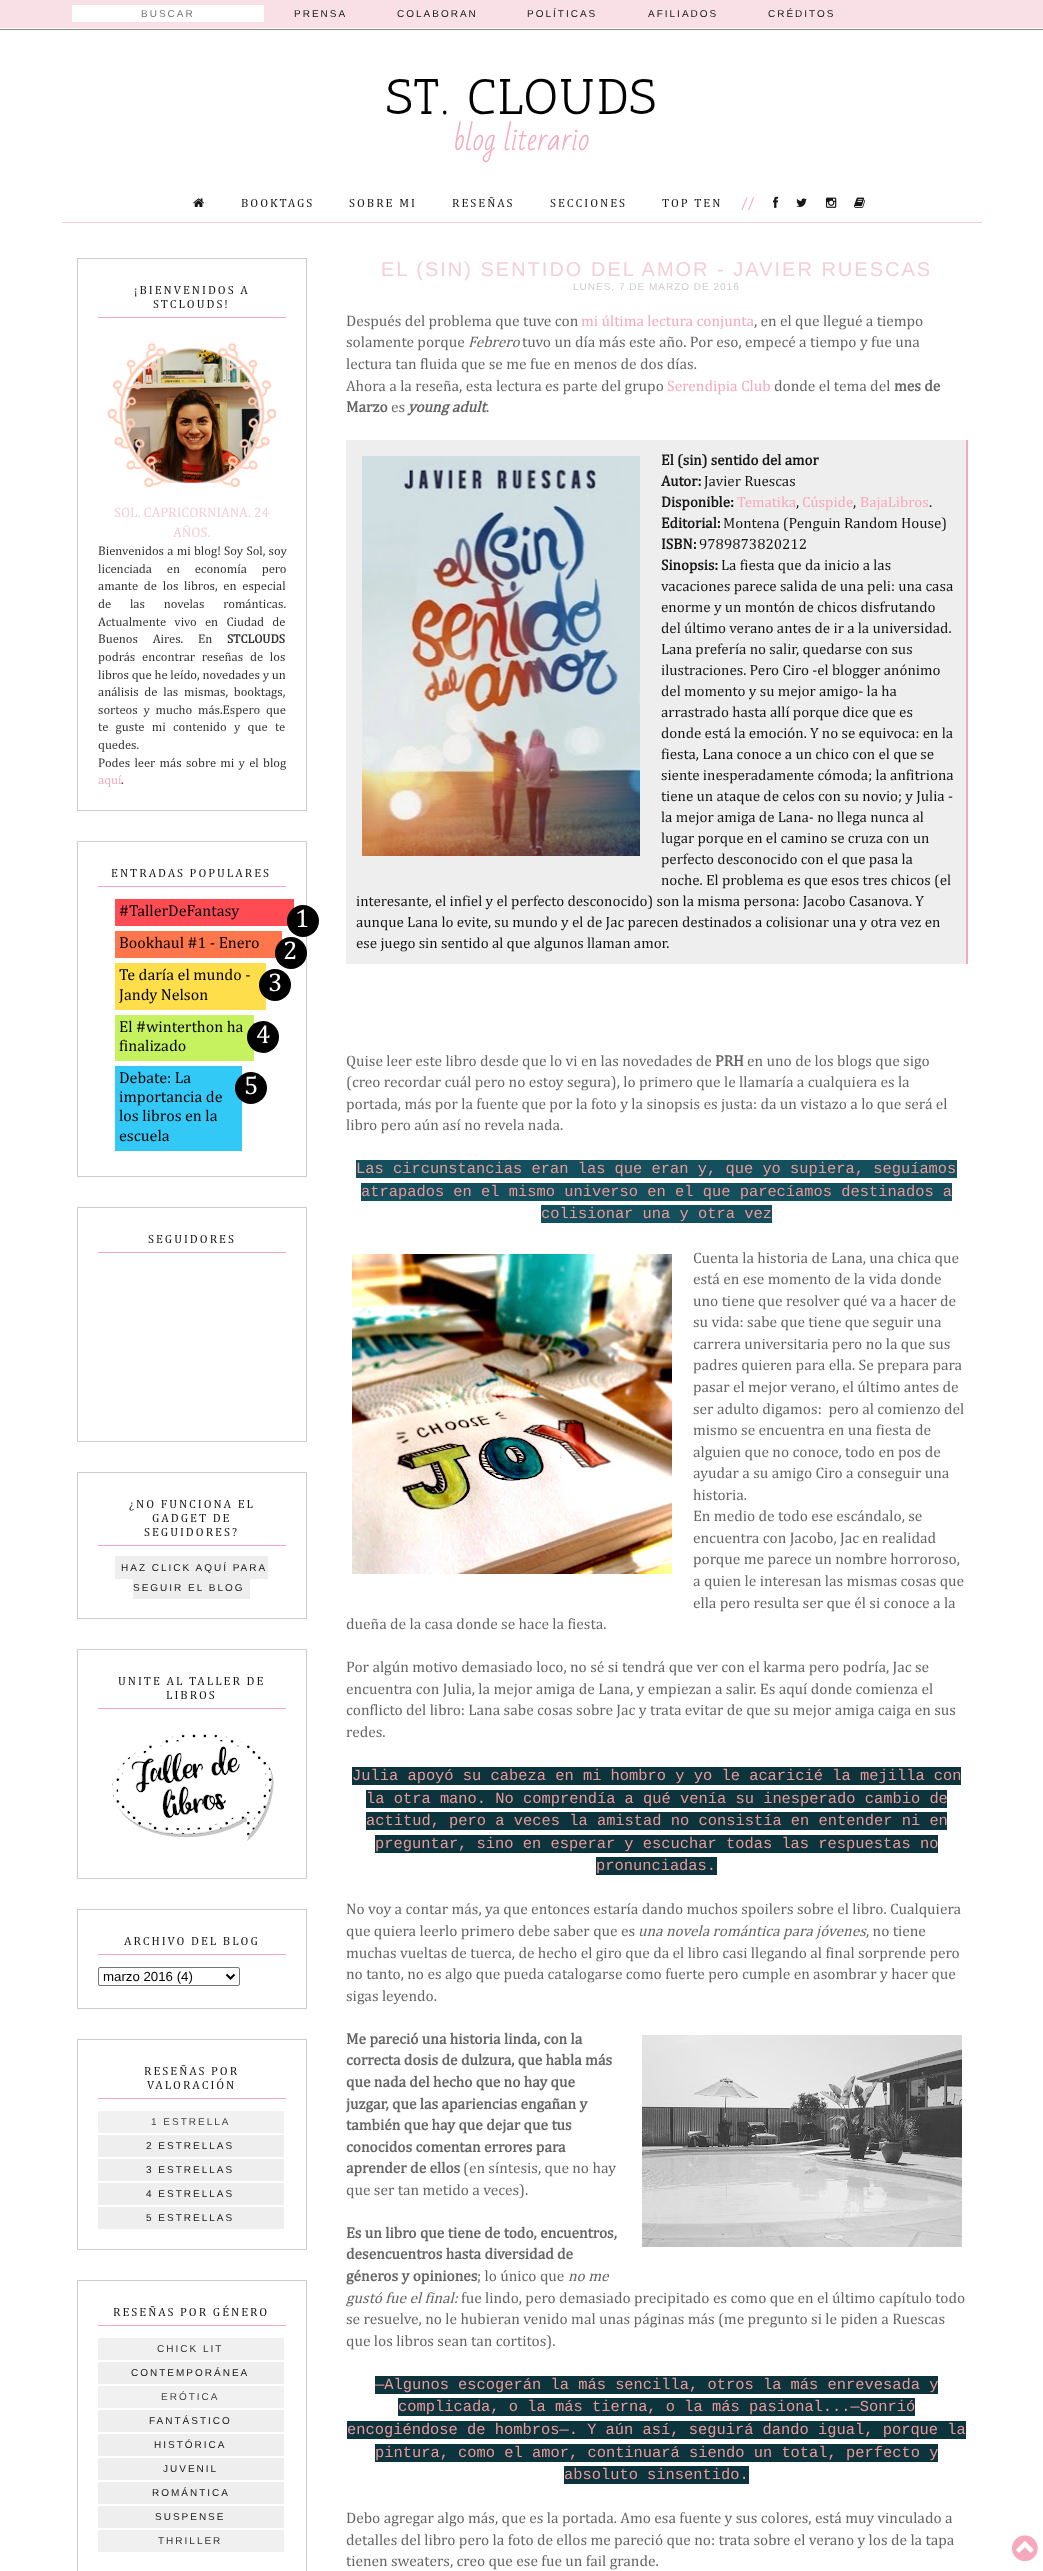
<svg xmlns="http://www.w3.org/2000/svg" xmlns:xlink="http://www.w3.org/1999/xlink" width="1043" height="2571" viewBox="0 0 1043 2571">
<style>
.cls-1{font:10px Liberation Sans;letter-spacing:2px;fill:#757575}
.cls-2{font:10px Liberation Sans;letter-spacing:2px;fill:#171717}
.cls-3{font:50px Antic Slab;letter-spacing:2px;fill:#000000}
.cls-4{font:30px Bad Script;fill:#f5a9bc}
.cls-5{font:12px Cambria;letter-spacing:2px;fill:#171717}
.cls-6{font:14px Cambria;fill:#f5a9bc}
.cls-7{font:14px Cambria;fill:#f6ced8}
.cls-8{font:12.6px Cambria;fill:#333333}
.cls-9{font:bold 12.6px Cambria;fill:#333333}
.cls-10{font:12.6px Cambria;fill:#f5a9bc}
.cls-11{font:16px Cambria;fill:#000000}
.cls-12{font:26px Cambria;fill:#ffffff}
.cls-13{font:13.25px Liberation Sans;fill:#000000}
.cls-14{font:10px Liberation Sans;letter-spacing:2px;fill:#454545}
.cls-15{font:10px Liberation Sans;letter-spacing:2px;fill:#333333}
.cls-16{font:20px Liberation Sans;letter-spacing:2px;fill:#f6ced8}
.cls-17{font:10px Liberation Sans;letter-spacing:1px;fill:#cccccc}
.cls-18{font:15.4px Cambria;fill:#666666}
.cls-19{font:15.4px Cambria;fill:#f5a9bc}
.cls-20{font:italic 15.4px Cambria;fill:#666666}
.cls-21{font:bold 15.4px Cambria;fill:#666666}
.cls-22{font:italic bold 15.4px Cambria;fill:#666666}
.cls-23{font:bold 15px Cambria;fill:#171717}
.cls-24{font:15px Cambria;fill:#171717}
.cls-25{font:15px Cambria;fill:#f5a9bc}
.cls-26{font:15.4px Liberation Mono;fill:#ea9999}
</style>
<rect width="100%" height="100%" fill="#ffffff"/>
<rect fill="#f8e0e6" x="0" y="0" width="1043" height="28"/>
<rect fill="#ffffff" x="72" y="5" width="192" height="17"/>
<image xlink:href="image0.png" x="0" y="28" width="1043" height="2"/>
<rect fill="#f6ced8" x="62" y="222" width="920" height="1"/>
<image xlink:href="image1.png" x="193" y="198" width="11" height="9"/>
<image xlink:href="image2.png" x="773" y="196" width="6" height="12"/>
<image xlink:href="image3.png" x="796" y="198" width="11" height="9"/>
<image xlink:href="image4.png" x="826" y="197" width="11" height="11"/>
<image xlink:href="image5.png" x="854" y="197" width="12" height="11"/>
<rect fill="none" stroke="#cccccc" x="77.5" y="258.5" width="229" height="552"/>
<rect fill="#f5a9bc" x="98" y="317" width="188" height="1"/>
<image xlink:href="image6.png" x="107" y="343" width="170" height="144"/>
<rect fill="none" stroke="#cccccc" x="77.5" y="841.5" width="229" height="335"/>
<rect fill="#f5a9bc" x="98" y="886" width="188" height="1"/>
<rect fill="#ff4c54" x="115" y="899" width="179" height="27"/>
<circle fill="#000000" cx="303" cy="921" r="16"/>
<rect fill="#ff764c" x="115" y="931" width="167" height="27"/>
<circle fill="#000000" cx="291" cy="953" r="16"/>
<rect fill="#ffde4c" x="115" y="963" width="151" height="47"/>
<circle fill="#000000" cx="275" cy="985" r="16"/>
<rect fill="#c7f25f" x="115" y="1015" width="139" height="46"/>
<circle fill="#000000" cx="263" cy="1037" r="16"/>
<rect fill="#33c9f7" x="115" y="1066" width="127" height="85"/>
<circle fill="#000000" cx="251" cy="1088" r="16"/>
<rect fill="none" stroke="#cccccc" x="77.5" y="1207.5" width="229" height="234"/>
<rect fill="#f5a9bc" x="98" y="1252" width="188" height="1"/>
<rect fill="none" stroke="#cccccc" x="77.5" y="1472.5" width="229" height="146"/>
<rect fill="#f5a9bc" x="98" y="1545" width="188" height="1"/>
<rect fill="#eeeeee" x="115" y="1556" width="153" height="23"/>
<rect fill="#eeeeee" x="133" y="1579" width="117" height="20"/>
<rect fill="none" stroke="#cccccc" x="77.5" y="1649.5" width="229" height="229"/>
<rect fill="#f5a9bc" x="98" y="1708" width="188" height="1"/>
<image xlink:href="image7.png" x="112" y="1734" width="162" height="107"/>
<rect fill="none" stroke="#cccccc" x="77.5" y="1909.5" width="229" height="99"/>
<rect fill="#f5a9bc" x="98" y="1954" width="188" height="1"/>
<rect fill="none" stroke="#767676" x="98.5" y="1967.5" width="141" height="18" rx="1.5"/>
<path fill="none" stroke="#000000" stroke-width="2" d="M226.5 1974.5L230.5 1978.5L234.5 1974.5"/>
<rect fill="none" stroke="#cccccc" x="77.5" y="2039.5" width="229" height="210"/>
<rect fill="#f5a9bc" x="98" y="2098" width="188" height="1"/>
<rect fill="#f1f1f1" x="98" y="2111" width="186" height="22"/>
<rect fill="#eeeeee" x="98" y="2135" width="186" height="22"/>
<rect fill="#eeeeee" x="98" y="2159" width="186" height="22"/>
<rect fill="#eeeeee" x="98" y="2183" width="186" height="22"/>
<rect fill="#eeeeee" x="98" y="2207" width="186" height="22"/>
<rect fill="none" stroke="#cccccc" x="77.5" y="2280.5" width="229" height="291"/>
<rect fill="#f5a9bc" x="98" y="2325" width="188" height="1"/>
<rect fill="#f0f0f0" x="98" y="2338" width="186" height="22"/>
<rect fill="#eeeeee" x="98" y="2362" width="186" height="22"/>
<rect fill="#f1f1f1" x="98" y="2386" width="186" height="22"/>
<rect fill="#eeeeee" x="98" y="2410" width="186" height="22"/>
<rect fill="#eeeeee" x="98" y="2434" width="186" height="22"/>
<rect fill="#eeeeee" x="98" y="2458" width="186" height="22"/>
<rect fill="#eeeeee" x="98" y="2482" width="186" height="22"/>
<rect fill="#eeeeee" x="98" y="2506" width="186" height="22"/>
<rect fill="#f0f0f0" x="98" y="2530" width="186" height="22"/>
<rect fill="#eeeeee" x="346" y="440" width="620" height="524"/>
<rect fill="#f5a9bc" x="966" y="440" width="2" height="524"/>
<image xlink:href="image8.png" x="362" y="456" width="278" height="400"/>
<rect fill="#134f5c" x="356" y="1160" width="601" height="18"/>
<rect fill="#134f5c" x="361" y="1183" width="591" height="18"/>
<rect fill="#134f5c" x="541" y="1205" width="231" height="18"/>
<image xlink:href="image9.png" x="352" y="1254" width="320" height="320"/>
<rect fill="#0c343d" x="352" y="1767" width="609" height="18"/>
<rect fill="#0c343d" x="366" y="1790" width="581" height="18"/>
<rect fill="#0c343d" x="366" y="1812" width="581" height="18"/>
<rect fill="#0c343d" x="375" y="1835" width="563" height="18"/>
<rect fill="#0c343d" x="596" y="1857" width="121" height="18"/>
<image xlink:href="image10.png" x="642" y="2035" width="320" height="212"/>
<rect fill="#0c343d" x="375" y="2376" width="563" height="18"/>
<rect fill="#0c343d" x="398" y="2398" width="517" height="18"/>
<rect fill="#0c343d" x="347" y="2421" width="619" height="18"/>
<rect fill="#0c343d" x="375" y="2444" width="563" height="18"/>
<rect fill="#0c343d" x="564" y="2466" width="185" height="18"/>
<image xlink:href="image11.png" x="1012" y="2535" width="26" height="27"/>
<text class="cls-1" x="141" y="17">BUSCAR</text>
<text class="cls-2" x="294" y="17">PRENSA</text>
<text class="cls-2" x="397" y="17">COLABORAN</text>
<text class="cls-2" x="527" y="17">POLÍTICAS</text>
<text class="cls-2" x="648" y="17">AFILIADOS</text>
<text class="cls-2" x="768" y="17">CRÉDITOS</text>
<text class="cls-3" x="386" y="114">ST. CLOUDS</text>
<text class="cls-4" x="453" y="150">blog literario</text>
<text class="cls-5" x="241" y="207">BOOKTAGS</text>
<text class="cls-5" x="349" y="207">SOBRE MI</text>
<text class="cls-5" x="452" y="207">RESEÑAS</text>
<text class="cls-5" x="550" y="207">SECCIONES</text>
<text class="cls-5" x="662" y="207">TOP TEN</text>
<text class="cls-6" x="741" y="207">//</text>
<text class="cls-5" x="134" y="294">¡BIENVENIDOS A</text>
<text class="cls-5" x="153" y="308">STCLOUDS!</text>
<text class="cls-7" x="114" y="517">SOL. CAPRICORNIANA. 24</text>
<text class="cls-7" x="173" y="537">AÑOS.</text>
<text class="cls-8"><tspan x="98" y="555" word-spacing="0.5">Bienvenidos a mi blog! Soy Sol, soy</tspan><tspan x="98" y="573" word-spacing="12">licenciada en economía pero</tspan><tspan x="98" y="590" word-spacing="3">amante de los libros, en especial</tspan><tspan x="98" y="608" word-spacing="16">de las novelas románticas.</tspan><tspan x="98" y="626" word-spacing="5.5">Actualmente vivo en Ciudad de</tspan><tspan x="98" y="643" word-spacing="12">Buenos Aires. En</tspan></text>
<text class="cls-9" x="227" y="643">STCLOUDS</text>
<text class="cls-8"><tspan x="98" y="661" word-spacing="4">podrás encontrar reseñas de los</tspan><tspan x="98" y="679">libros que he leído, novedades y un</tspan><tspan x="98" y="696" word-spacing="3">análisis de las mismas, booktags,</tspan><tspan x="98" y="714" word-spacing="3">sorteos y mucho más.Espero que</tspan><tspan x="98" y="731" word-spacing="4.5">te guste mi contenido y que te</tspan><tspan x="98" y="749">quedes.</tspan><tspan x="98" y="767" word-spacing="1.5">Podes leer más sobre mi y el blog</tspan></text>
<text class="cls-10" x="98" y="784">aquí</text>
<text class="cls-8" x="121" y="784">.</text>
<text class="cls-5" x="111" y="877">ENTRADAS POPULARES</text>
<text class="cls-11" x="119" y="916">#TallerDeFantasy</text>
<text class="cls-12" x="295" y="927">1</text>
<text class="cls-11" x="119" y="948">Bookhaul #1 - Enero</text>
<text class="cls-12" x="283" y="959">2</text>
<text class="cls-11" x="119" y="980">Te daría el mundo -</text>
<text class="cls-12" x="268" y="991">3</text>
<text class="cls-11" x="119" y="1000">Jandy Nelson</text>
<text class="cls-11" x="119" y="1032">El #winterthon ha</text>
<text class="cls-12" x="256" y="1043">4</text>
<text class="cls-11" x="119" y="1051">finalizado</text>
<text class="cls-11" x="119" y="1083">Debate: La</text>
<text class="cls-12" x="244" y="1094">5</text>
<text class="cls-11"><tspan x="119" y="1102">importancia de</tspan><tspan x="119" y="1121">los libros en la</tspan><tspan x="119" y="1141">escuela</tspan></text>
<text class="cls-5" x="148" y="1243">SEGUIDORES</text>
<text class="cls-5" x="129" y="1508">¿NO FUNCIONA EL</text>
<text class="cls-5" x="152" y="1522">GADGET DE</text>
<text class="cls-5" x="144" y="1536">SEGUIDORES?</text>
<text class="cls-2" x="121" y="1571">HAZ CLICK AQUÍ PARA</text>
<text class="cls-2" x="133" y="1591">SEGUIR EL BLOG</text>
<text class="cls-5" x="118" y="1685">UNITE AL TALLER DE</text>
<text class="cls-5" x="166" y="1699">LIBROS</text>
<text class="cls-5" x="124" y="1945">ARCHIVO DEL BLOG</text>
<text class="cls-13" x="103" y="1981">marzo 2016 (4)</text>
<text class="cls-5" x="144" y="2075">RESEÑAS POR</text>
<text class="cls-5" x="147" y="2089">VALORACIÓN</text>
<text class="cls-14" x="151" y="2125">1 ESTRELLA</text>
<text class="cls-2" x="146" y="2149">2 ESTRELLAS</text>
<text class="cls-2" x="146" y="2173">3 ESTRELLAS</text>
<text class="cls-2" x="146" y="2197">4 ESTRELLAS</text>
<text class="cls-2" x="146" y="2221">5 ESTRELLAS</text>
<text class="cls-5" x="113" y="2316">RESEÑAS POR GÉNERO</text>
<text class="cls-15" x="157" y="2352">CHICK LIT</text>
<text class="cls-2" x="131" y="2376">CONTEMPORÁNEA</text>
<text class="cls-14" x="161" y="2400">ERÓTICA</text>
<text class="cls-2" x="149" y="2424">FANTÁSTICO</text>
<text class="cls-2" x="154" y="2448">HISTÓRICA</text>
<text class="cls-2" x="163" y="2472">JUVENIL</text>
<text class="cls-2" x="152" y="2496">ROMÁNTICA</text>
<text class="cls-2" x="155" y="2520">SUSPENSE</text>
<text class="cls-15" x="158" y="2544">THRILLER</text>
<text class="cls-16" x="381" y="276">EL (SIN) SENTIDO DEL AMOR - JAVIER RUESCAS</text>
<text class="cls-17" x="573" y="290">LUNES, 7 DE MARZO DE 2016</text>
<text class="cls-18" x="346" y="326">Después del problema que tuve con</text>
<text class="cls-19" x="581" y="326">mi última lectura conjunta</text>
<text class="cls-18" x="754" y="326">, en el que llegué a tiempo</text>
<text class="cls-18" x="346" y="347">solamente porque</text>
<text class="cls-20" x="468" y="347">Febrero</text>
<text class="cls-18" x="522" y="347">tuvo un día más este año. Por eso, empecé a tiempo y fue una</text>
<text class="cls-18"><tspan x="346" y="369">lectura tan fluida que se me fue en menos de dos días.</tspan><tspan x="346" y="391">Ahora a la reseña, esta lectura es parte del grupo</tspan></text>
<text class="cls-19" x="667" y="391">Serendipia Club</text>
<text class="cls-18" x="774" y="391">donde el tema del</text>
<text class="cls-21" x="894" y="391">mes de</text>
<text class="cls-21" x="346" y="412">Marzo</text>
<text class="cls-18" x="391" y="412">es</text>
<text class="cls-22" x="408" y="412">young adult</text>
<text class="cls-18" x="486" y="412">.</text>
<text class="cls-23"><tspan x="661" y="465">El (sin) sentido del amor</tspan><tspan x="661" y="486">Autor:</tspan></text>
<text class="cls-24" x="704" y="486">Javier Ruescas</text>
<text class="cls-23" x="661" y="507">Disponible:</text>
<text class="cls-25" x="737" y="507">Tematika</text>
<text class="cls-24" x="796" y="507">,</text>
<text class="cls-25" x="802" y="507">Cúspide</text>
<text class="cls-24" x="853" y="507">,</text>
<text class="cls-25" x="860" y="507">BajaLibros</text>
<text class="cls-24" x="929" y="507">.</text>
<text class="cls-23" x="661" y="528">Editorial:</text>
<text class="cls-24" x="723" y="528">Montena (Penguin Random House)</text>
<text class="cls-23" x="661" y="549">ISBN:</text>
<text class="cls-24" x="699" y="549">9789873820212</text>
<text class="cls-23" x="661" y="570">Sinopsis:</text>
<text class="cls-24" x="721" y="570">La fiesta que da inicio a las</text>
<text class="cls-24"><tspan x="661" y="591">vacaciones parece salida de una peli: una casa</tspan><tspan x="661" y="612">enorme y un montón de chicos disfrutando</tspan><tspan x="661" y="633">del último verano antes de ir a la universidad.</tspan><tspan x="661" y="654">Lana prefería no salir, quedarse con sus</tspan><tspan x="661" y="675">ilustraciones. Pero Ciro -el blogger anónimo</tspan><tspan x="661" y="696">del momento y su mejor amigo- la ha</tspan><tspan x="661" y="717">arrastrado hasta allí porque dice que es</tspan><tspan x="661" y="738">donde está la emoción. Y no se equivoca: en la</tspan><tspan x="661" y="759">fiesta, Lana conoce a un chico con el que se</tspan><tspan x="661" y="780">siente inesperadamente cómoda; la anfitriona</tspan><tspan x="661" y="801">tiene un ataque de celos con su novio; y Julia -</tspan><tspan x="661" y="822">la mejor amiga de Lana- no llega nunca al</tspan><tspan x="661" y="843">lugar porque en el camino se cruza con un</tspan><tspan x="661" y="864">perfecto desconocido con el que pasa la</tspan><tspan x="661" y="885">noche. El problema es que esos tres chicos (el</tspan></text>
<text class="cls-24"><tspan x="356" y="906">interesante, el infiel y el perfecto desconocido) son la misma persona: Jacobo Casanova. Y</tspan><tspan x="356" y="927">aunque Lana lo evite, su mundo y el de Jac parecen destinados a colisionar una y otra vez en</tspan><tspan x="356" y="948">ese juego sin sentido al que algunos llaman amor.</tspan></text>
<text class="cls-18" x="346" y="1066">Quise leer este libro desde que lo vi en las novedades de</text>
<text class="cls-21" x="715" y="1066">PRH</text>
<text class="cls-18" x="747" y="1066">en uno de los blogs que sigo</text>
<text class="cls-18"><tspan x="346" y="1087">(creo recordar cuál pero no estoy segura), lo primero que le llamaría a cualquiera es la</tspan><tspan x="346" y="1109">portada, más por la fuente que por la foto y la sinopsis es justa: da un vistazo a lo que será el</tspan><tspan x="346" y="1130">libro pero aún así no revela nada.</tspan></text>
<text class="cls-26" x="356" y="1173">Las circunstancias eran las que eran y, que yo supiera, seguíamos</text>
<text class="cls-26" x="361" y="1196">atrapados en el mismo universo en el que parecíamos destinados a</text>
<text class="cls-26" x="541" y="1218">colisionar una y otra vez</text>
<text class="cls-18" xml:space="preserve"><tspan x="693" y="1263">Cuenta la historia de Lana, una chica que</tspan><tspan x="693" y="1284">está en ese momento de la vida donde</tspan><tspan x="693" y="1306">uno tiene que resolver qué va a hacer de</tspan><tspan x="693" y="1327">su vida: sabe que tiene que seguir una</tspan><tspan x="693" y="1349">carrera universitaria pero no la que sus</tspan><tspan x="693" y="1370">padres quieren para ella. Se prepara para</tspan><tspan x="693" y="1392">pasar el mejor verano, el último antes de</tspan><tspan x="693" y="1414">ser adulto digamos:  pero al comienzo del</tspan><tspan x="693" y="1435">mismo se encuentra en una fiesta de</tspan><tspan x="693" y="1457">alguien que no conoce, todo en pos de</tspan><tspan x="693" y="1478">ayudar a su amigo Ciro a conseguir una</tspan><tspan x="693" y="1500">historia.</tspan><tspan x="693" y="1521">En medio de todo ese escándalo, se</tspan><tspan x="693" y="1543">encuentra con Jacobo, Jac en realidad</tspan><tspan x="693" y="1564">porque me parece un nombre horroroso,</tspan><tspan x="693" y="1586">a quien le interesan las mismas cosas que</tspan><tspan x="693" y="1608">ella pero resulta ser que él si conoce a la</tspan></text>
<text class="cls-18" x="346" y="1629">dueña de la casa donde se hace la fiesta.</text>
<text class="cls-18"><tspan x="346" y="1672">Por algún motivo demasiado loco, no sé si tendrá que ver con el karma pero podría, Jac se</tspan><tspan x="346" y="1694">encuentra con Julia, la mejor amiga de Lana, y empiezan a salir. Es aquí donde comienza el</tspan><tspan x="346" y="1715">conflicto del libro: Lana sabe cosas sobre Jac y trata evitar de que su mejor amiga caiga en sus</tspan><tspan x="346" y="1737">redes.</tspan></text>
<text class="cls-26" x="352" y="1780">Julia apoyó su cabeza en mi hombro y yo le acaricié la mejilla con</text>
<text class="cls-26"><tspan x="366" y="1803">la otra mano. No comprendía a qué venía su inesperado cambio de</tspan><tspan x="366" y="1825">actitud, pero a veces la amistad no consistía en entender ni en</tspan></text>
<text class="cls-26" x="375" y="1848">preguntar, sino en esperar y escuchar todas las respuestas no</text>
<text class="cls-26" x="596" y="1870">pronunciadas.</text>
<text class="cls-18"><tspan x="346" y="1914">No voy a contar más, ya que entonces estaría dando muchos spoilers sobre el libro. Cualquiera</tspan><tspan x="346" y="1936">que quiera leerlo primero debe saber que es</tspan></text>
<text class="cls-20" x="638" y="1936">una novela romántica para jóvenes</text>
<text class="cls-18" x="866" y="1936">, no tiene</text>
<text class="cls-18"><tspan x="346" y="1958">muchas vueltas de tuerca, de hecho el giro que da el libro casi llegando al final sorprende pero</tspan><tspan x="346" y="1979">no tanto, no es algo que pueda catalogarse como fuerte pero cumple en asombrar y hacer que</tspan><tspan x="346" y="2001">sigas leyendo.</tspan></text>
<text class="cls-21"><tspan x="346" y="2044">Me pareció una historia linda, con la</tspan><tspan x="346" y="2065">correcta dosis de dulzura, que habla más</tspan><tspan x="346" y="2087">que nada del hecho que no hay que</tspan><tspan x="346" y="2109">juzgar, que las apariencias engañan y</tspan><tspan x="346" y="2130">también que hay que dejar que tus</tspan><tspan x="346" y="2152">conocidos comentan errores para</tspan><tspan x="346" y="2173">aprender de ellos</tspan></text>
<text class="cls-18" x="463" y="2173">(en síntesis, que no hay</text>
<text class="cls-18" x="346" y="2195">que ser tan metido a veces).</text>
<text class="cls-21"><tspan x="346" y="2238">Es un libro que tiene de todo, encuentros,</tspan><tspan x="346" y="2259">desencuentros hasta diversidad de</tspan><tspan x="346" y="2281">géneros y opiniones</tspan></text>
<text class="cls-18" x="477" y="2281">; lo único que</text>
<text class="cls-20" x="568" y="2281">no me</text>
<text class="cls-20" x="346" y="2303">gustó fue el final:</text>
<text class="cls-18" x="461" y="2303">fue lindo, pero demasiado precipitado es como que en el último capítulo todo</text>
<text class="cls-18"><tspan x="346" y="2324">se resuelve, no le hubieran venido mal unas páginas más (me pregunto si le piden a Ruescas</tspan><tspan x="346" y="2346">que los libros sean tan cortitos).</tspan></text>
<text class="cls-26" x="375" y="2389">—Algunos escogerán la más sencilla, otros la más enrevesada y</text>
<text class="cls-26" x="398" y="2411">complicada, o la más tierna, o la más pasional...—Sonrió</text>
<text class="cls-26" x="347" y="2434">encogiéndose de hombros—. Y aún así, seguirá dando igual, porque la</text>
<text class="cls-26" x="375" y="2457">pintura, como el amor, continuará siendo un total, perfecto y</text>
<text class="cls-26" x="564" y="2479">absoluto sinsentido.</text>
<text class="cls-18"><tspan x="346" y="2523">Debo agregar algo más, que es la portada. Amo esa fuente y sus colores, está muy vinculado a</tspan><tspan x="346" y="2545">detalles del libro pero la foto de ellos me pareció que no: trata sobre el verano y los de la tapa</tspan><tspan x="346" y="2566">tienen sweaters, creo que ese fue un fail grande.</tspan></text>
</svg>
